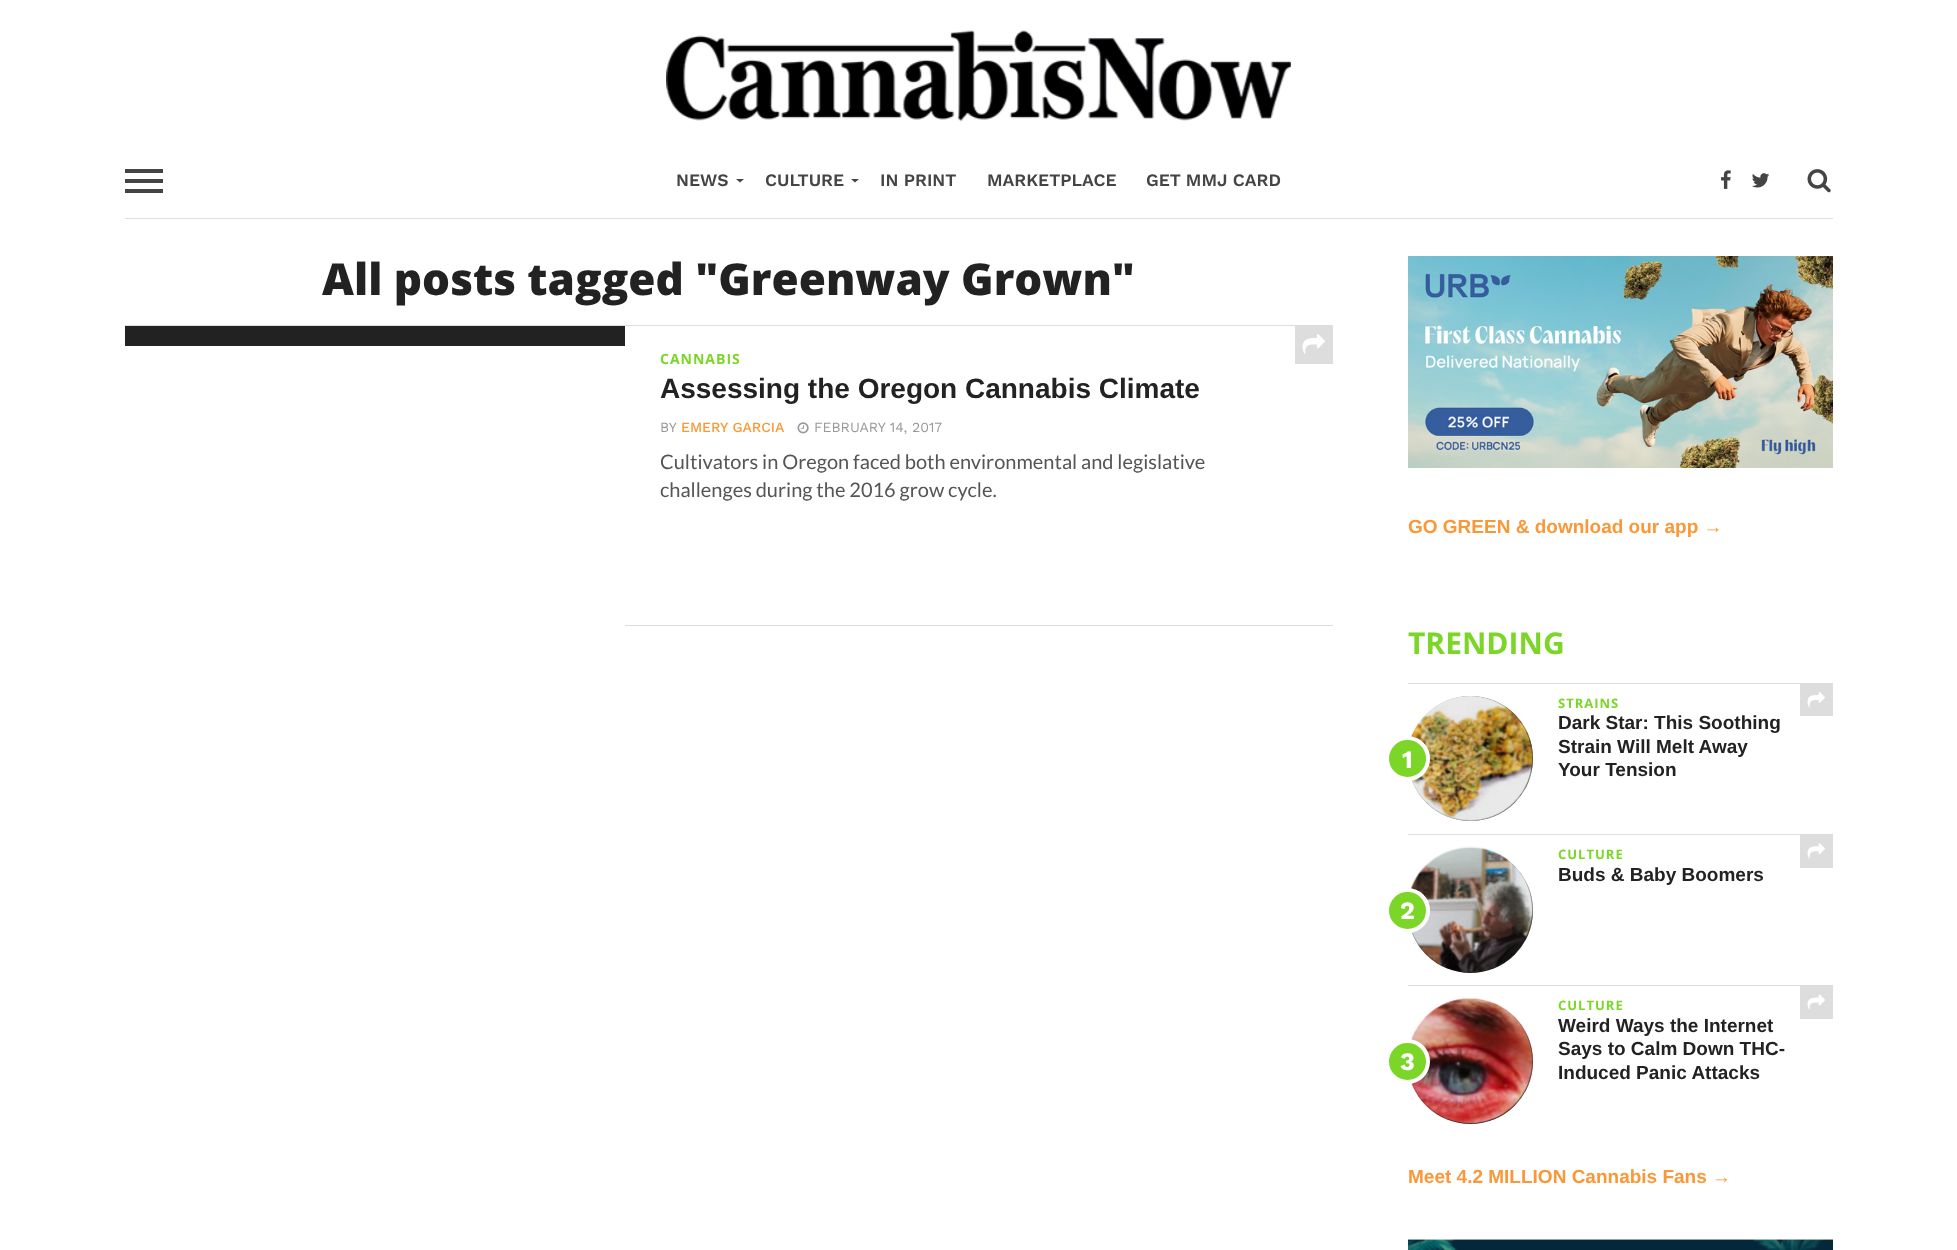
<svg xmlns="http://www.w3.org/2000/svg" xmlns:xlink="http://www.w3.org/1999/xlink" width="1957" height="1250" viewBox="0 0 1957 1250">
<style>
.cls-1{font:600 17.5px Work Sans;fill:#444444}
.cls-2{font:800 44px Open Sans;fill:#222222}
.cls-3{font:bold 14px Open Sans;letter-spacing:1px;fill:#7bd627}
.cls-4{font:bold 28px Liberation Sans;fill:#222222}
.cls-5{font:14px Work Sans;fill:#999999}
.cls-6{font:500 14px Work Sans;fill:#fa9737}
.cls-7{font:20px Lato;fill:#555555}
.cls-8{font:bold 19px Liberation Sans;fill:#fa9737}
.cls-9{font:bold 30px Open Sans;fill:#7bd627}
.cls-10{font:bold 25px Work Sans;fill:#ffffff}
.cls-11{font:bold 13px Open Sans;letter-spacing:1px;fill:#7bd627}
.cls-12{font:bold 19px Liberation Sans;fill:#222222}
</style>
<rect width="100%" height="100%" fill="#ffffff"/>
<image xlink:href="image0.png" x="666" y="30" width="625" height="91"/>
<rect fill="#444444" x="125" y="169" width="38" height="4"/>
<rect fill="#444444" x="125" y="179" width="38" height="4"/>
<rect fill="#444444" x="125" y="189" width="38" height="4"/>
<path fill="#444444" d="M736 179H744L740 182.5Z"/>
<path fill="#444444" d="M851 179H859L855 182.5Z"/>
<image xlink:href="image1.png" x="1721" y="170" width="10" height="19"/>
<image xlink:href="image2.png" x="1751" y="173" width="19" height="15"/>
<image xlink:href="image3.png" x="1807" y="169" width="24" height="24"/>
<rect fill="#dddddd" x="125" y="218" width="1708" height="1"/>
<rect fill="#dddddd" x="125" y="325" width="1208" height="1"/>
<rect fill="#222222" x="125" y="326" width="500" height="20"/>
<rect fill="#dddddd" x="625" y="625" width="708" height="1"/>
<rect fill="#dddddd" x="1295" y="326" width="38" height="38"/>
<image xlink:href="image4.png" x="1302" y="334" width="23" height="20"/>
<image xlink:href="image5.png" x="797" y="422" width="12" height="12"/>
<image xlink:href="image6.png" x="1408" y="256" width="425" height="212"/>
<rect fill="#dddddd" x="1408" y="683" width="425" height="1"/>
<circle fill="#222222" cx="1470.5" cy="758.5" r="62.5"/>
<image xlink:href="image7.png" x="1410" y="696" width="123" height="125"/>
<circle fill="#7bd627" stroke="#ffffff" stroke-width="4" cx="1407.5" cy="758.5" r="20.5"/>
<rect fill="#dddddd" x="1800" y="684" width="33" height="32"/>
<image xlink:href="image8.png" x="1807" y="692" width="18" height="16"/>
<rect fill="#dddddd" x="1408" y="834" width="425" height="1"/>
<rect fill="#dddddd" x="1800" y="835" width="33" height="33"/>
<image xlink:href="image9.png" x="1807" y="843" width="18" height="16"/>
<circle fill="#222222" cx="1470.5" cy="910.5" r="62.5"/>
<image xlink:href="image10.png" x="1410" y="846" width="123" height="126"/>
<circle fill="#7bd627" stroke="#ffffff" stroke-width="4" cx="1407.5" cy="910.5" r="20.5"/>
<rect fill="#dddddd" x="1408" y="985" width="425" height="1"/>
<circle fill="#222222" cx="1470.5" cy="1061.5" r="62.5"/>
<image xlink:href="image11.png" x="1410" y="998" width="123" height="126"/>
<circle fill="#7bd627" stroke="#ffffff" stroke-width="4" cx="1407.5" cy="1061.5" r="20.5"/>
<rect fill="#dddddd" x="1800" y="986" width="33" height="33"/>
<image xlink:href="image12.png" x="1807" y="994" width="18" height="16"/>
<image xlink:href="image13.png" x="1408" y="1239" width="425" height="11"/>
<text class="cls-1" x="676" y="186">NEWS</text>
<text class="cls-1" x="765" y="186">CULTURE</text>
<text class="cls-1" x="880" y="186">IN PRINT</text>
<text class="cls-1" x="987" y="186">MARKETPLACE</text>
<text class="cls-1" x="1146" y="186">GET MMJ CARD</text>
<text class="cls-2" x="322" y="295">All posts tagged "Greenway Grown"</text>
<text class="cls-3" x="660" y="364">CANNABIS</text>
<text class="cls-4" x="660" y="398">Assessing the Oregon Cannabis Climate</text>
<text class="cls-5" x="660" y="432">BY</text>
<text class="cls-6" x="681" y="432">EMERY GARCIA</text>
<text class="cls-5" x="814" y="432">FEBRUARY 14, 2017</text>
<text class="cls-7"><tspan x="660" y="469">Cultivators in Oregon faced both environmental and legislative</tspan><tspan x="660" y="497">challenges during the 2016 grow cycle.</tspan></text>
<text class="cls-8" x="1408" y="533">GO GREEN &amp; download our app →</text>
<text class="cls-9" x="1408" y="654">TRENDING</text>
<text class="cls-10" x="1402" y="768">1</text>
<text class="cls-11" x="1558" y="708">STRAINS</text>
<text class="cls-12"><tspan x="1558" y="729">Dark Star: This Soothing</tspan><tspan x="1558" y="753">Strain Will Melt Away</tspan><tspan x="1558" y="776">Your Tension</tspan></text>
<text class="cls-11" x="1558" y="859">CULTURE</text>
<text class="cls-12" x="1558" y="881">Buds &amp; Baby Boomers</text>
<text class="cls-10" x="1400" y="919">2</text>
<text class="cls-10" x="1400" y="1070">3</text>
<text class="cls-11" x="1558" y="1010">CULTURE</text>
<text class="cls-12"><tspan x="1558" y="1032">Weird Ways the Internet</tspan><tspan x="1558" y="1055">Says to Calm Down THC-</tspan><tspan x="1558" y="1079">Induced Panic Attacks</tspan></text>
<text class="cls-8" x="1408" y="1183">Meet 4.2 MILLION Cannabis Fans →</text>
</svg>
